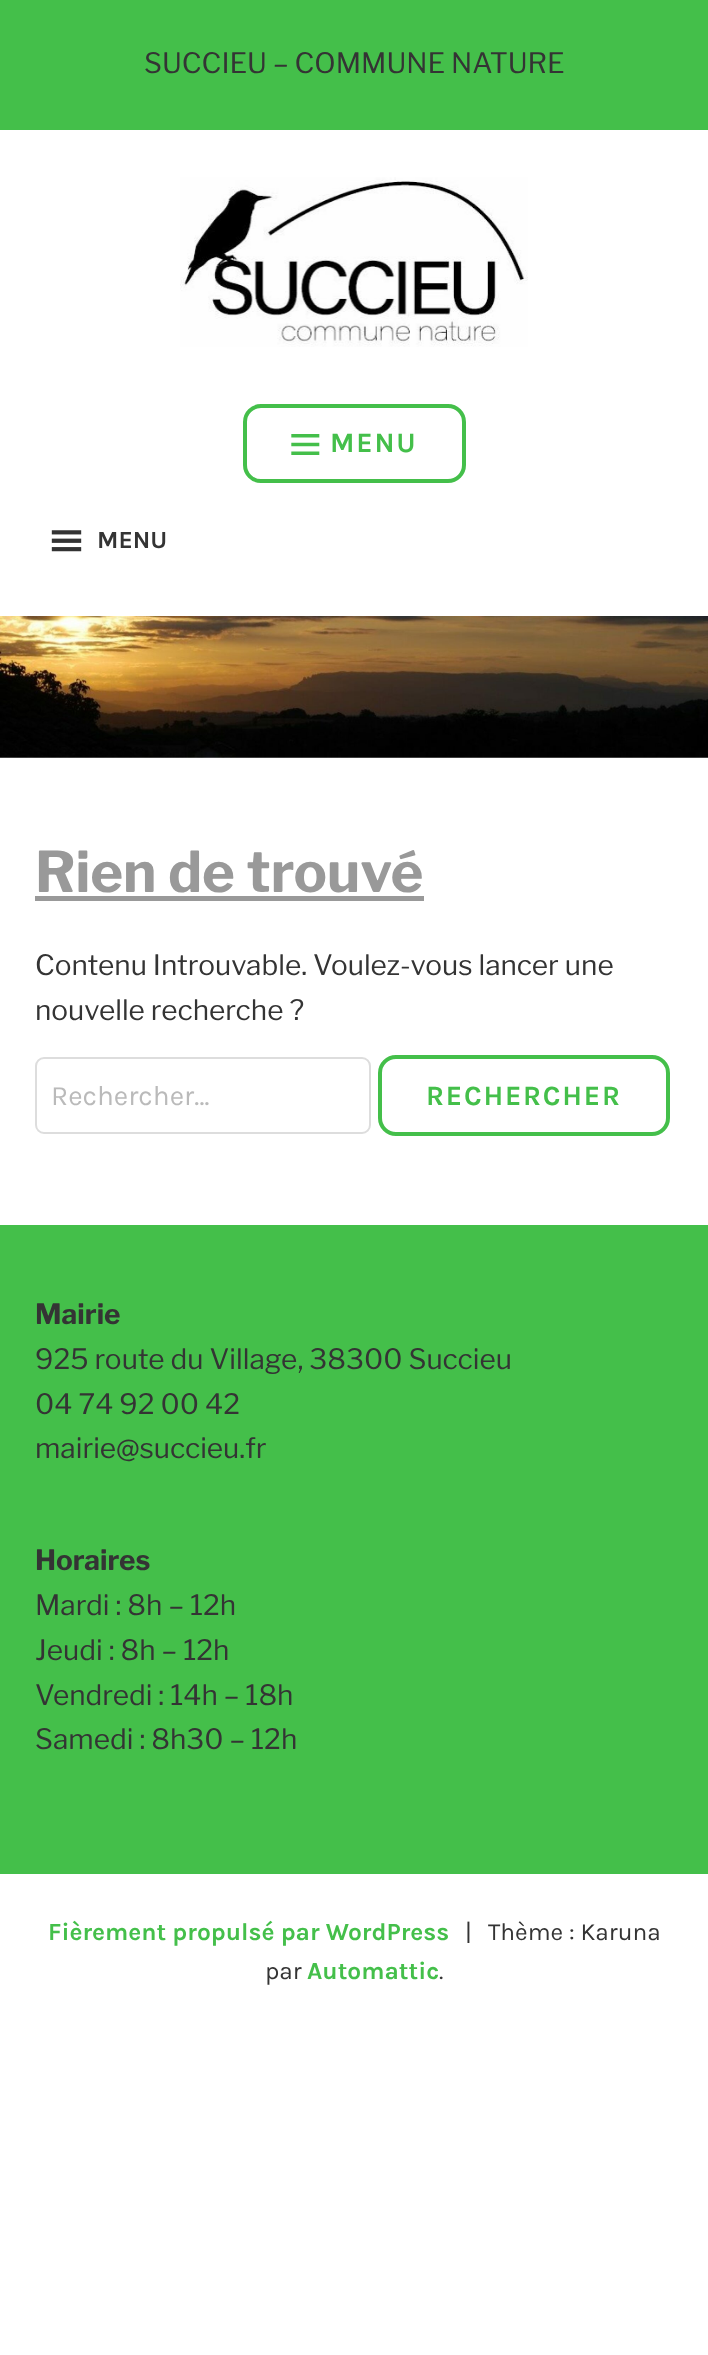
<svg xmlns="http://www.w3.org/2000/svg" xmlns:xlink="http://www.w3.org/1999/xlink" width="708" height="2355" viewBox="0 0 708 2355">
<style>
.cls-1{font:28px Libre Franklin;fill:#343434}
.cls-2{font:bold 28px Karla;letter-spacing:1.75px;fill:#44bf4a}
.cls-3{font:bold 24.5px Karla;fill:#343434}
.cls-4{font:bold 56px Libre Franklin;fill:#999999}
.cls-5{font:28px Karla;fill:#bababa}
.cls-6{font:bold 28px Libre Franklin;fill:#343434}
.cls-7{font:bold 24.5px Karla;fill:#44bf4a}
.cls-8{font:24.5px Karla;fill:#343434}
</style>
<rect width="100%" height="100%" fill="#ffffff"/>
<rect fill="#44bf4a" x="0" y="0" width="708" height="130"/>
<image xlink:href="image0.png" x="180" y="177" width="348" height="170"/>
<rect fill="none" stroke="#44bf4a" stroke-width="4" x="245" y="406" width="219" height="75" rx="16"/>
<image xlink:href="image1.png" x="291" y="434" width="29" height="21"/>
<image xlink:href="image2.png" x="51" y="530" width="31" height="22"/>
<image xlink:href="image3.png" x="0" y="616" width="708" height="142"/>
<rect fill="#999999" x="35" y="896" width="389" height="5"/>
<rect fill="none" stroke="#dddddd" stroke-width="2" x="36" y="1058" width="334" height="75" rx="8"/>
<rect fill="none" stroke="#44bf4a" stroke-width="4" x="380" y="1057" width="288" height="77" rx="16"/>
<rect fill="#44bf4a" x="0" y="1225" width="708" height="649"/>
<text class="cls-1" x="144" y="73">SUCCIEU – COMMUNE NATURE</text>
<text class="cls-2" x="330" y="452">MENU</text>
<text class="cls-3" x="97" y="548">MENU</text>
<text class="cls-4" x="35" y="892">Rien de trouvé</text>
<text class="cls-1"><tspan x="35" y="975">Contenu Introuvable. Voulez-vous lancer une</tspan><tspan x="35" y="1020">nouvelle recherche ?</tspan></text>
<text class="cls-5" x="51" y="1105">Rechercher…</text>
<text class="cls-2" x="426" y="1105">RECHERCHER</text>
<text class="cls-6" x="35" y="1324">Mairie</text>
<text class="cls-1"><tspan x="35" y="1369">925 route du Village, 38300 Succieu</tspan><tspan x="35" y="1414">04 74 92 00 42</tspan><tspan x="35" y="1458">mairie@succieu.fr</tspan></text>
<text class="cls-6" x="35" y="1570">Horaires</text>
<text class="cls-1"><tspan x="35" y="1615">Mardi : 8h – 12h</tspan><tspan x="35" y="1660">Jeudi : 8h – 12h</tspan><tspan x="35" y="1705">Vendredi : 14h – 18h</tspan><tspan x="35" y="1749">Samedi : 8h30 – 12h</tspan></text>
<text class="cls-7" x="48" y="1940">Fièrement propulsé par WordPress</text>
<text class="cls-8" x="465" y="1940">|</text>
<text class="cls-8" x="488" y="1940">Thème : Karuna</text>
<text class="cls-8" x="265" y="1979">par</text>
<text class="cls-7" x="307" y="1979">Automattic</text>
<text class="cls-8" x="439" y="1979">.</text>
</svg>
